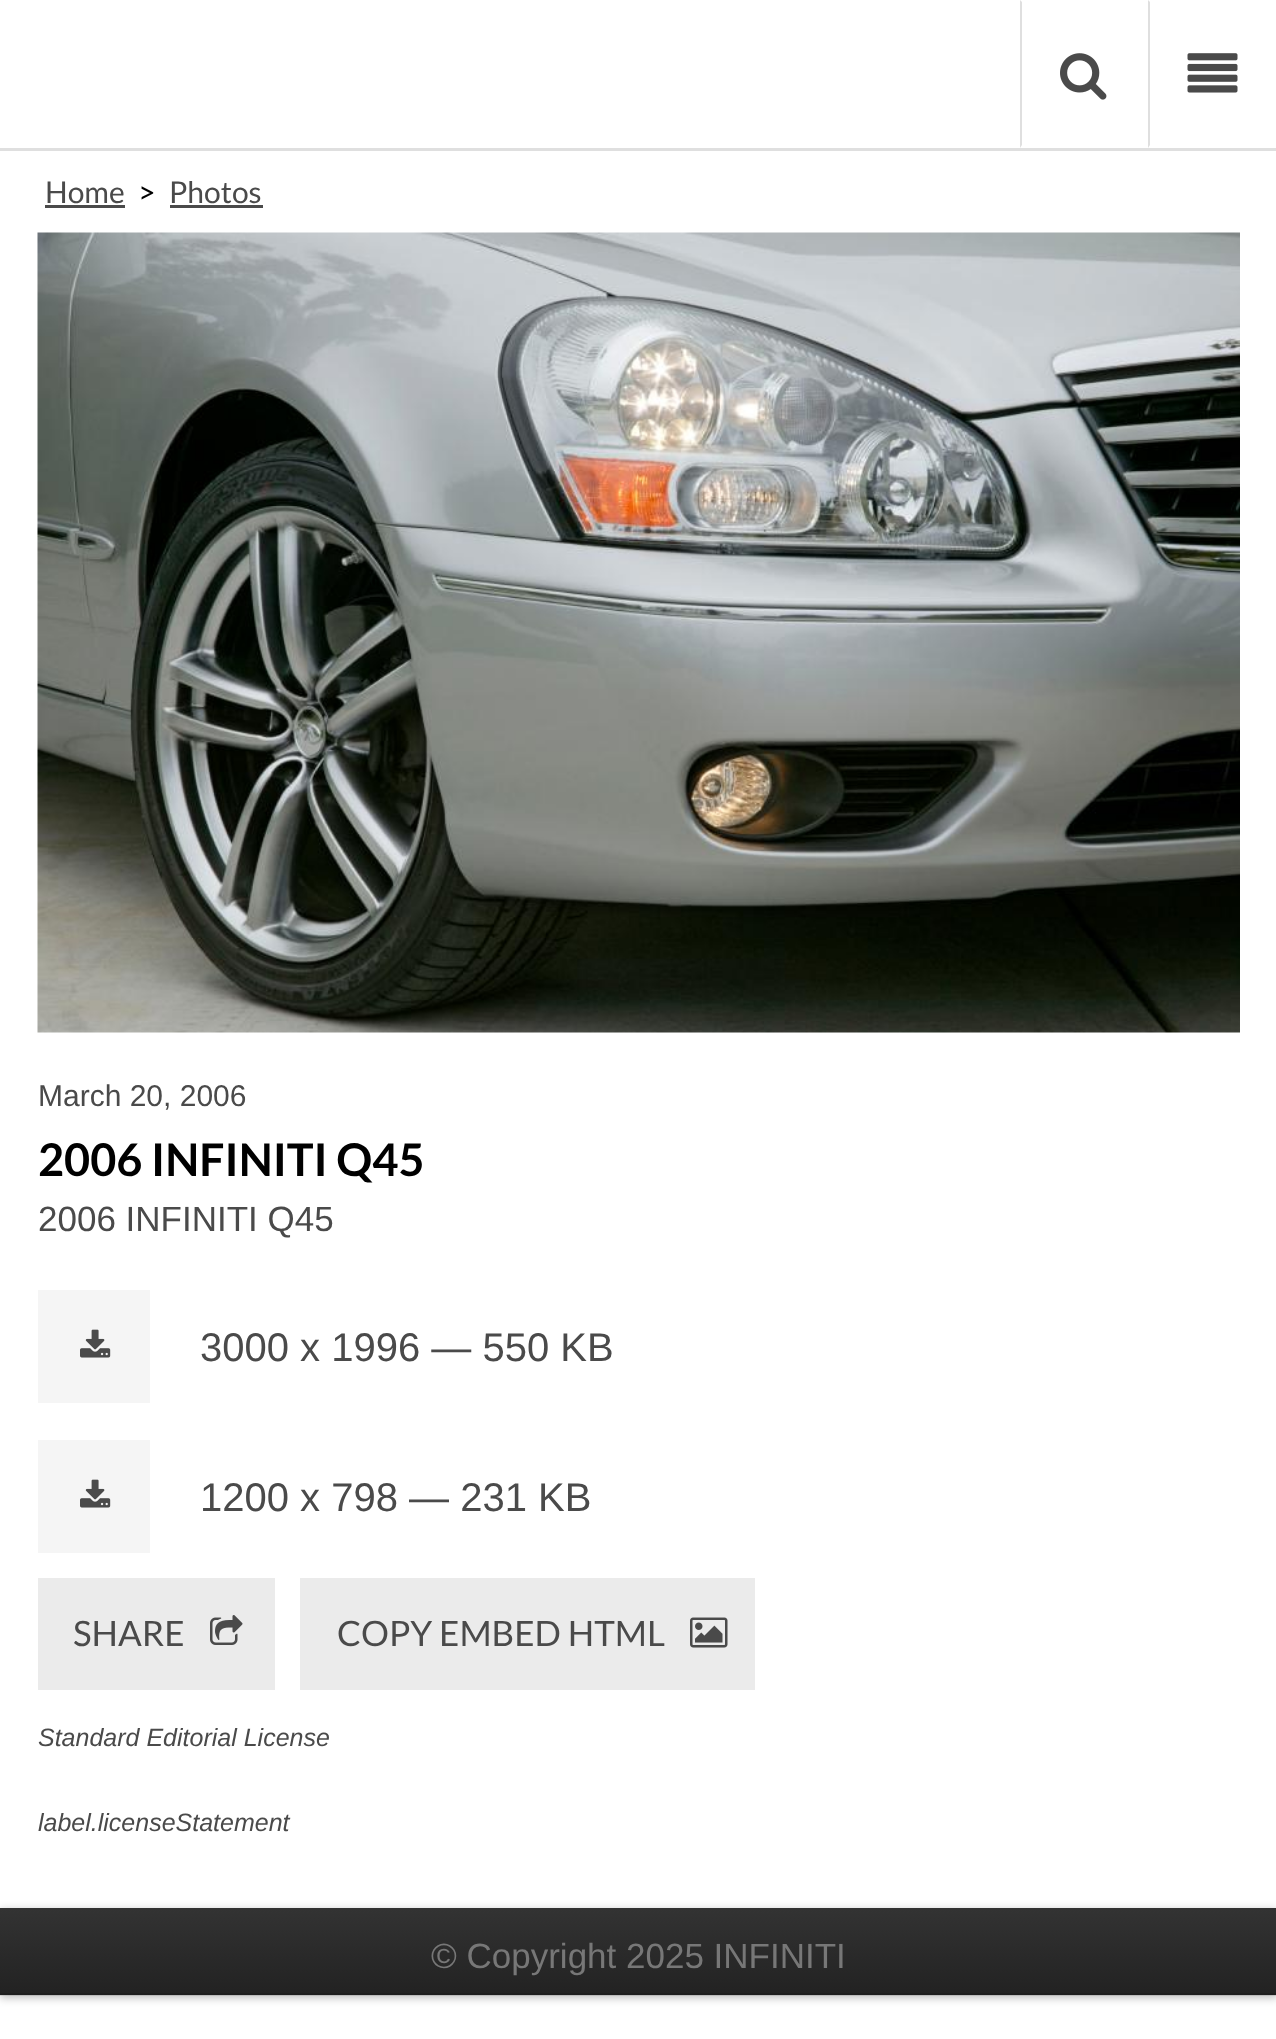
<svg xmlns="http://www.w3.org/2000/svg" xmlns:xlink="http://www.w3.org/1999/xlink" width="1276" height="2039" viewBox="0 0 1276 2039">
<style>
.cls-1{font:30px Lato;fill:#4a4a4a}
.cls-2{font:30px Lato;fill:#000000}
.cls-3{font:30px Liberation Sans;fill:#4a4a4a}
.cls-4{font:bold 45px Lato;fill:#000000}
.cls-5{font:35px Liberation Sans;fill:#4a4a4a}
.cls-6{font:40px Liberation Sans;fill:#4a4a4a}
.cls-7{font:35px Lato;fill:#4a4a4a}
.cls-8{font:italic 25px Liberation Sans;fill:#4a4a4a}
.cls-9{font:35px Liberation Sans;fill:#777777}
</style>
<defs>
<linearGradient id="g1" gradientUnits="userSpaceOnUse" x1="639" y1="1908" x2="639" y2="1995"><stop offset="0" stop-color="#333333"/><stop offset="1" stop-color="#222222"/></linearGradient>
</defs>
<rect width="100%" height="100%" fill="#ffffff"/>
<rect fill="#dfdfdf" x="0" y="148" width="1276" height="3"/>
<path fill="#dfdfdf" d="M1020 148V0L1022 2V145Z"/>
<image xlink:href="image0.png" x="1060" y="53" width="47" height="47"/>
<path fill="#dfdfdf" d="M1148 148V0L1150 2V145Z"/>
<image xlink:href="image1.png" x="1187" y="53" width="51" height="40"/>
<rect fill="#4a4a4a" x="45" y="205" width="80" height="3"/>
<rect fill="#4a4a4a" x="170" y="205" width="93" height="3"/>
<image xlink:href="image2.png" x="37" y="232" width="1203" height="801"/>
<rect fill="#f5f5f5" x="38" y="1290" width="112" height="113"/>
<image xlink:href="image3.png" x="80" y="1329" width="31" height="29"/>
<rect fill="#f5f5f5" x="38" y="1440" width="112" height="113"/>
<image xlink:href="image3.png" x="80" y="1479" width="31" height="29"/>
<rect fill="#ebebeb" x="38" y="1578" width="237" height="112"/>
<image xlink:href="image4.png" x="210" y="1615" width="33" height="30"/>
<rect fill="#ebebeb" x="300" y="1578" width="455" height="112"/>
<image xlink:href="image5.png" x="690" y="1617" width="38" height="31"/>
<rect fill="#000000" fill-opacity="0.25" filter="blur(4px)" x="0" y="1910" width="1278" height="88"/>
<rect fill="url(#g1)" x="0" y="1908" width="1276" height="87"/>
<rect fill="#000000" fill-opacity="0.1" x="0" y="1993" width="1276" height="3"/>
<text class="cls-1" x="45" y="203">Home</text>
<text class="cls-2" x="138" y="203">&gt;</text>
<text class="cls-1" x="169" y="203">Photos</text>
<text class="cls-3" x="38" y="1106">March 20, 2006</text>
<text class="cls-4" x="38" y="1176">2006 INFINITI Q45</text>
<text class="cls-5" x="38" y="1231">2006 INFINITI Q45</text>
<text class="cls-6" x="200" y="1361">3000 x 1996 — 550 KB</text>
<text class="cls-6" x="200" y="1511">1200 x 798 — 231 KB</text>
<text class="cls-7" x="73" y="1646">SHARE</text>
<text class="cls-7" x="337" y="1646">COPY EMBED HTML</text>
<text class="cls-8" x="38" y="1746">Standard Editorial License</text>
<text class="cls-8" x="38" y="1831">label.licenseStatement</text>
<text class="cls-9" x="431" y="1968">© Copyright 2025 INFINITI</text>
</svg>
